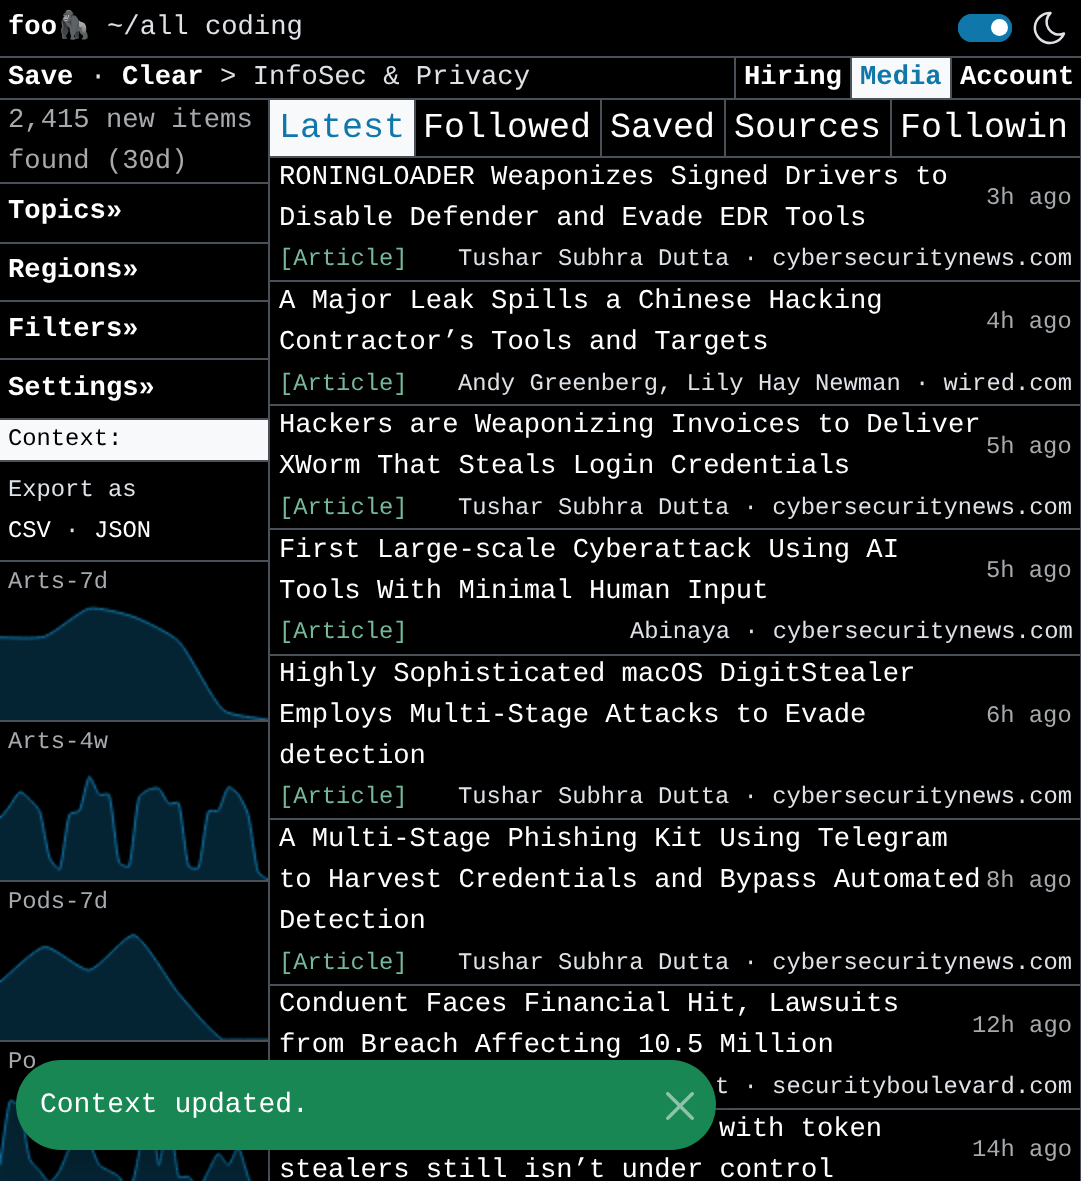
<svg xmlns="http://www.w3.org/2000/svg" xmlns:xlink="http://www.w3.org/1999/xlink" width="1081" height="1181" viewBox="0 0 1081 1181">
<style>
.cls-1{font:bold 27.2px Liberation Mono;fill:#ffffff}
.cls-2{font:bold 27.2px Noto Color Emoji;fill:#ffffff}
.cls-3{font:27.2px Liberation Mono;fill:#dee2e6}
.cls-4{font:bold 27.2px Liberation Mono;fill:#1077aa}
.cls-5{font:27.2px Liberation Mono;fill:#a7aaad}
.cls-6{font:23.8px Liberation Mono;fill:#000000}
.cls-7{font:23.8px Liberation Mono;fill:#dee2e6}
.cls-8{font:23.8px Liberation Mono;fill:#ffffff}
.cls-9{font:23.8px Liberation Mono;fill:#a7aaad}
.cls-10{font:35px Liberation Mono;fill:#1077aa}
.cls-11{font:35px Liberation Mono;fill:#ffffff}
.cls-12{font:27.2px Liberation Mono;fill:#ffffff}
.cls-13{font:23.8px Liberation Mono;fill:#75b798}
.cls-14{font:28px Liberation Mono;fill:#ffffff}
</style>
<rect width="100%" height="100%" fill="#000000"/>
<rect fill="#495057" x="0" y="56" width="1081" height="2"/>
<rect fill="#1077aa" x="958" y="14" width="54" height="28" rx="14"/>
<circle fill="#ffffff" cx="999.5" cy="27.5" r="8.5"/>
<rect fill="none" stroke="#1077aa" stroke-width="2" x="959" y="15" width="52" height="26" rx="13"/>
<path fill="none" stroke="#dee2e6" stroke-width="2.5" stroke-linecap="round" stroke-linejoin="round" d="M1050 13H1050.5C1040.5 22.5 1051 39 1064 33.5C1061 40.5 1053.5 44.5 1046 42.5C1039 40.5 1034 33.5 1035 26C1036 18.5 1042.5 13 1050 13Z"/>
<rect fill="#495057" x="0" y="98" width="1081" height="2"/>
<rect fill="#495057" x="734" y="58" width="2" height="40"/>
<rect fill="#f8f9fa" x="852" y="58" width="98" height="40"/>
<rect fill="#495057" x="850" y="58" width="2" height="40"/>
<rect fill="#495057" x="950" y="58" width="2" height="40"/>
<rect fill="#495057" x="268" y="100" width="2" height="1081"/>
<rect fill="#495057" x="0" y="182" width="268" height="2"/>
<rect fill="#495057" x="0" y="242" width="268" height="2"/>
<rect fill="#495057" x="0" y="300" width="268" height="2"/>
<rect fill="#495057" x="0" y="358" width="268" height="2"/>
<rect fill="#495057" x="0" y="418" width="268" height="2"/>
<rect fill="#f8f9fa" x="0" y="420" width="268" height="40"/>
<rect fill="#495057" x="0" y="460" width="268" height="2"/>
<rect fill="#495057" x="0" y="560" width="268" height="2"/>
<rect fill="#495057" x="0" y="720" width="268" height="2"/>
<image xlink:href="image0.png" x="0" y="605" width="268" height="115"/>
<rect fill="#495057" x="0" y="880" width="268" height="2"/>
<image xlink:href="image1.png" x="0" y="774" width="268" height="106"/>
<rect fill="#495057" x="0" y="1040" width="268" height="2"/>
<image xlink:href="image2.png" x="0" y="933" width="268" height="107"/>
<image xlink:href="image3.png" x="0" y="1098" width="253" height="83"/>
<rect fill="#495057" x="1080" y="100" width="1" height="1081"/>
<rect fill="#495057" x="270" y="156" width="810" height="2"/>
<rect fill="#f8f9fa" x="270" y="100" width="144" height="56"/>
<rect fill="#495057" x="414" y="100" width="2" height="56"/>
<rect fill="#495057" x="600" y="100" width="2" height="56"/>
<rect fill="#495057" x="724" y="100" width="2" height="56"/>
<rect fill="#495057" x="890" y="100" width="2" height="56"/>
<rect fill="#495057" x="270" y="280" width="810" height="2"/>
<rect fill="#495057" x="270" y="404" width="810" height="2"/>
<rect fill="#495057" x="270" y="528" width="810" height="2"/>
<rect fill="#495057" x="270" y="654" width="810" height="2"/>
<rect fill="#495057" x="270" y="818" width="810" height="2"/>
<rect fill="#495057" x="270" y="984" width="810" height="2"/>
<rect fill="#495057" x="715" y="1108" width="365" height="2"/>
<rect fill="#000000" fill-opacity="0.15" filter="blur(16px)" x="16" y="1076" width="700" height="90" rx="45"/>
<text class="cls-1" x="8" y="34">foo</text>
<text class="cls-2" x="57" y="34">🦍</text>
<text class="cls-3" x="107" y="34">~/all coding</text>
<text class="cls-1" x="8" y="84">Save</text>
<text class="cls-3" x="90" y="84">·</text>
<text class="cls-1" x="122" y="84">Clear</text>
<text class="cls-3" x="220" y="84">&gt; InfoSec &amp; Privacy</text>
<text class="cls-1" x="744" y="84">Hiring</text>
<text class="cls-4" x="860" y="84">Media</text>
<text class="cls-1" x="960" y="84">Account</text>
<text class="cls-5"><tspan x="8" y="127">2,415 new items</tspan><tspan x="8" y="168">found (30d)</tspan></text>
<text class="cls-1" x="8" y="218">Topics»</text>
<text class="cls-1" x="8" y="277">Regions»</text>
<text class="cls-1" x="8" y="336">Filters»</text>
<text class="cls-1" x="8" y="395">Settings»</text>
<text class="cls-6" x="8" y="445">Context:</text>
<text class="cls-7" x="8" y="496">Export as</text>
<text class="cls-8" x="8" y="537">CSV</text>
<text class="cls-7" x="65" y="537">·</text>
<text class="cls-8" x="94" y="537">JSON</text>
<text class="cls-9" x="8" y="588">Arts-7d</text>
<text class="cls-9" x="8" y="748">Arts-4w</text>
<text class="cls-9" x="8" y="908">Pods-7d</text>
<text class="cls-9" x="8" y="1068">Po</text>
<text class="cls-10" x="279" y="137">Latest</text>
<text class="cls-11" x="423" y="137">Followed</text>
<text class="cls-11" x="610" y="137">Saved</text>
<text class="cls-11" x="734" y="137">Sources</text>
<text class="cls-11" x="900" y="137">Followin</text>
<text class="cls-12"><tspan x="279" y="184">RONINGLOADER Weaponizes Signed Drivers to</tspan><tspan x="279" y="225">Disable Defender and Evade EDR Tools</tspan></text>
<text class="cls-9" x="986" y="204">3h ago</text>
<text class="cls-13" x="279" y="265">[Article]</text>
<text class="cls-7" x="458" y="265">Tushar Subhra Dutta · cybersecuritynews.com</text>
<text class="cls-12"><tspan x="279" y="308">A Major Leak Spills a Chinese Hacking</tspan><tspan x="279" y="349">Contractor’s Tools and Targets</tspan></text>
<text class="cls-9" x="986" y="328">4h ago</text>
<text class="cls-13" x="279" y="390">[Article]</text>
<text class="cls-7" x="458" y="390">Andy Greenberg, Lily Hay Newman · wired.com</text>
<text class="cls-12"><tspan x="279" y="432">Hackers are Weaponizing Invoices to Deliver</tspan><tspan x="279" y="473">XWorm That Steals Login Credentials</tspan></text>
<text class="cls-9" x="986" y="453">5h ago</text>
<text class="cls-13" x="279" y="514">[Article]</text>
<text class="cls-7" x="458" y="514">Tushar Subhra Dutta · cybersecuritynews.com</text>
<text class="cls-12"><tspan x="279" y="557">First Large-scale Cyberattack Using AI</tspan><tspan x="279" y="598">Tools With Minimal Human Input</tspan></text>
<text class="cls-9" x="986" y="577">5h ago</text>
<text class="cls-13" x="279" y="638">[Article]</text>
<text class="cls-7" x="630" y="638">Abinaya · cybersecuritynews.com</text>
<text class="cls-12"><tspan x="279" y="681">Highly Sophisticated macOS DigitStealer</tspan><tspan x="279" y="722">Employs Multi-Stage Attacks to Evade</tspan><tspan x="279" y="763">detection</tspan></text>
<text class="cls-9" x="986" y="722">6h ago</text>
<text class="cls-13" x="279" y="803">[Article]</text>
<text class="cls-7" x="458" y="803">Tushar Subhra Dutta · cybersecuritynews.com</text>
<text class="cls-12"><tspan x="279" y="846">A Multi-Stage Phishing Kit Using Telegram</tspan><tspan x="279" y="887">to Harvest Credentials and Bypass Automated</tspan><tspan x="279" y="928">Detection</tspan></text>
<text class="cls-9" x="986" y="887">8h ago</text>
<text class="cls-13" x="279" y="969">[Article]</text>
<text class="cls-7" x="458" y="969">Tushar Subhra Dutta · cybersecuritynews.com</text>
<text class="cls-12"><tspan x="279" y="1011">Conduent Faces Financial Hit, Lawsuits</tspan><tspan x="279" y="1052">from Breach Affecting 10.5 Million</tspan></text>
<text class="cls-9" x="972" y="1032">12h ago</text>
<text class="cls-7" x="715" y="1093">t · securityboulevard.com</text>
<text class="cls-12" x="719" y="1136">with token</text>
<text class="cls-12" x="279" y="1177">stealers still isn’t under control</text>
<text class="cls-9" x="972" y="1156">14h ago</text>
<rect fill="#198754" x="16" y="1060" width="700" height="90" rx="45"/>
<text class="cls-14" x="40" y="1112">Context updated.</text>
<image xlink:href="image4.png" x="666" y="1092" width="28" height="28"/>
</svg>
